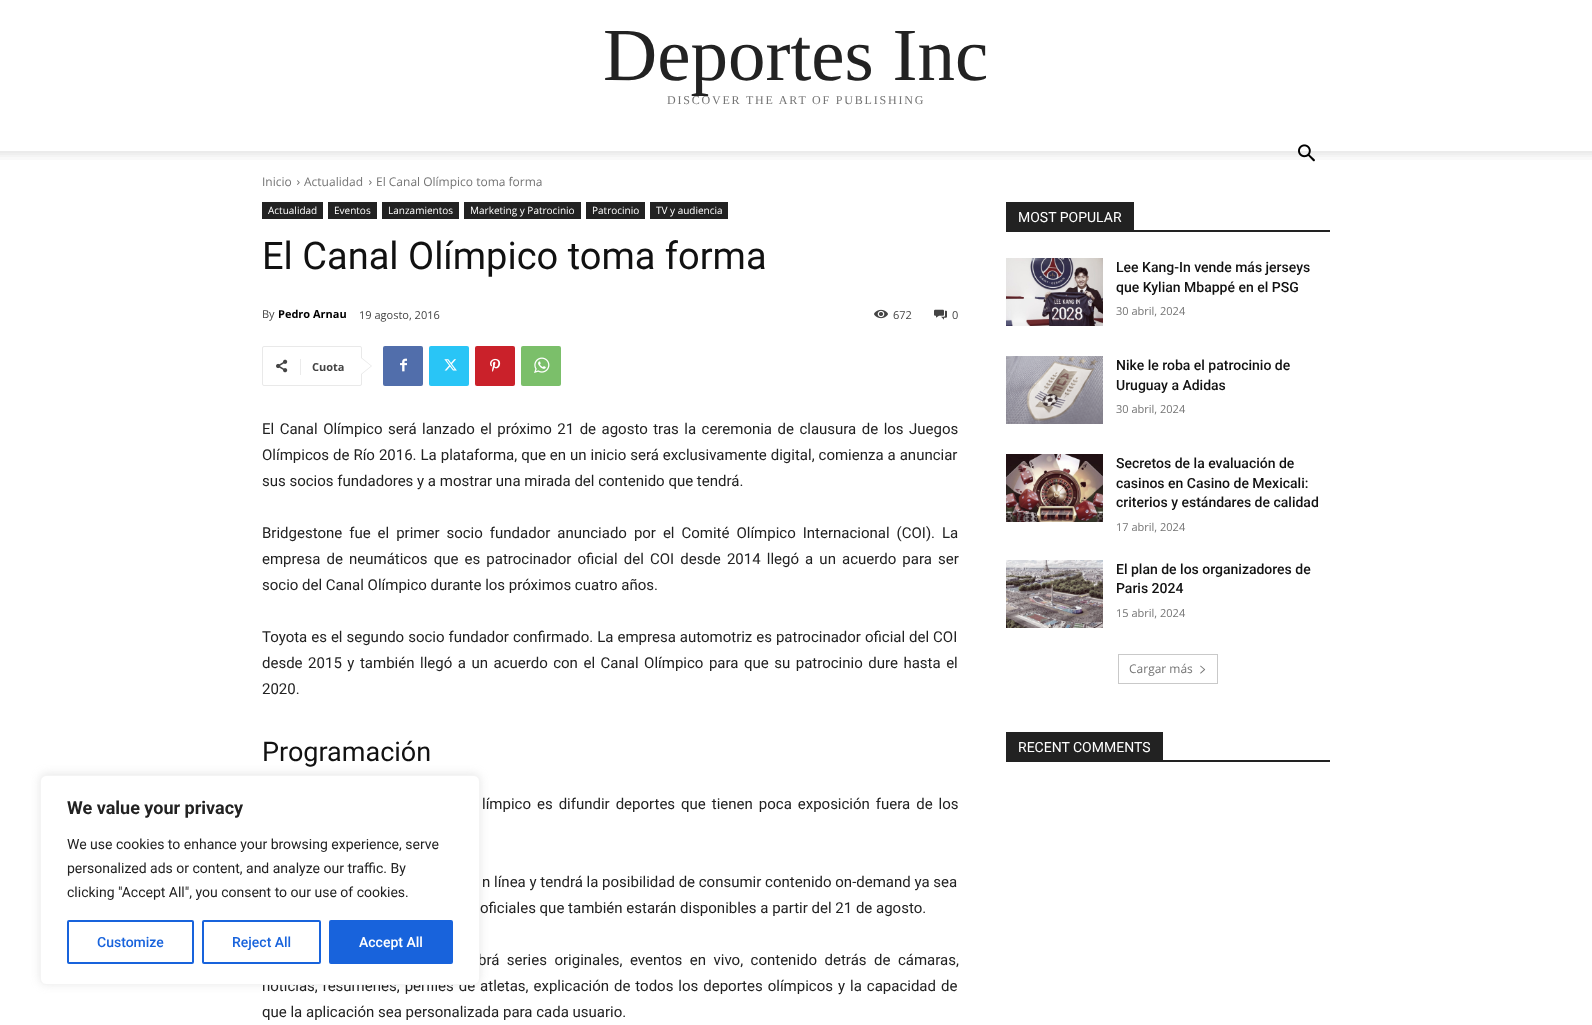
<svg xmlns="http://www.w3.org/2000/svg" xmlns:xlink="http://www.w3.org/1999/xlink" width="1592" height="1025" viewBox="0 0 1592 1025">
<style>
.cls-1{font:75px Liberation Serif;fill:#222222}
.cls-2{font:12px Liberation Serif;letter-spacing:1.8px;fill:#747474}
.cls-3{font:12px Open Sans;fill:#747474}
.cls-4{font:10px Open Sans;fill:#ffffff}
.cls-5{font:38px Roboto;fill:#111111}
.cls-6{font:11px Open Sans;fill:#444444}
.cls-7{font:bold 11px Open Sans;fill:#000000}
.cls-8{font:bold 11px Open Sans;fill:#444444}
.cls-9{font:15px Roboto;fill:#222222}
.cls-10{font:27px Roboto;fill:#111111}
.cls-11{font:500 14px Roboto;fill:#ffffff}
.cls-12{font:500 14px Roboto;fill:#1863dc}
.cls-13{font:14px Roboto;fill:#222222}
.cls-14{font:bold 18px Roboto;fill:#222222}
.cls-15{font:14px Roboto;fill:#ffffff}
.cls-16{font:500 14px Roboto;fill:#111111}
.cls-17{font:11px Open Sans;fill:#747474}
</style>
<rect width="100%" height="100%" fill="#ffffff"/>
<rect fill="#acabab" fill-opacity="0.3" filter="blur(5px)" x="40" y="774" width="440" height="210" rx="6"/>
<image xlink:href="image1.png" x="0" y="151" width="1592" height="9"/>
<image xlink:href="image0.png" x="1298" y="144" width="17" height="18"/>
<image xlink:href="image2.png" x="297" y="180" width="3" height="5"/>
<image xlink:href="image2.png" x="369" y="180" width="3" height="5"/>
<rect fill="#222222" x="262" y="202" width="61" height="17"/>
<rect fill="#222222" x="328" y="202" width="49" height="17"/>
<rect fill="#222222" x="382" y="202" width="77" height="17"/>
<rect fill="#222222" x="464" y="202" width="117" height="17"/>
<rect fill="#222222" x="586" y="202" width="59" height="17"/>
<rect fill="#222222" x="650" y="202" width="78" height="17"/>
<image xlink:href="image3.png" x="874" y="309" width="14" height="10"/>
<image xlink:href="image4.png" x="934" y="309" width="13" height="11"/>
<rect fill="none" stroke="#e9e9e9" x="262.5" y="346.5" width="99" height="39" rx="1.5"/>
<path fill="#e9e9e9" d="M361 375V357L372 366Z"/>
<image xlink:href="image5.png" x="276" y="359" width="12" height="14"/>
<rect fill="#ebebeb" x="300" y="359" width="1" height="16"/>
<path fill="#ffffff" d="M361 374V358L371 366Z"/>
<rect fill="#516eab" x="383" y="346" width="40" height="40" rx="2"/>
<image xlink:href="image6.png" x="400" y="358" width="7" height="14"/>
<rect fill="#29c5f6" x="429" y="346" width="40" height="40" rx="2"/>
<image xlink:href="image7.png" x="444" y="359" width="13" height="12"/>
<rect fill="#ca212a" x="475" y="346" width="40" height="40" rx="2"/>
<image xlink:href="image8.png" x="490" y="358" width="11" height="14"/>
<rect fill="#7bbf6a" x="521" y="346" width="40" height="40" rx="2"/>
<image xlink:href="image9.png" x="534" y="357" width="16" height="16"/>
<rect fill="#222222" x="1006" y="230" width="324" height="2"/>
<rect fill="#222222" x="1006" y="202" width="128" height="28"/>
<image xlink:href="image10.png" x="1006" y="258" width="97" height="68"/>
<image xlink:href="image11.png" x="1006" y="356" width="97" height="68"/>
<image xlink:href="image12.png" x="1006" y="454" width="97" height="68"/>
<image xlink:href="image13.png" x="1006" y="560" width="97" height="68"/>
<rect fill="none" stroke="#c9c9c9" x="1118.5" y="654.5" width="99" height="29"/>
<image xlink:href="image14.png" x="1200" y="665" width="6" height="9"/>
<rect fill="#222222" x="1006" y="760" width="324" height="2"/>
<rect fill="#222222" x="1006" y="732" width="157" height="28"/>
<text class="cls-1" x="603" y="80">Deportes Inc</text>
<text class="cls-2" x="667" y="104">DISCOVER THE ART OF PUBLISHING</text>
<text class="cls-3" x="262" y="186">Inicio</text>
<text class="cls-3" x="304" y="186">Actualidad</text>
<text class="cls-3" x="376" y="186">El Canal Olímpico toma forma</text>
<text class="cls-4" x="268" y="214">Actualidad</text>
<text class="cls-4" x="334" y="214">Eventos</text>
<text class="cls-4" x="388" y="214">Lanzamientos</text>
<text class="cls-4" x="470" y="214">Marketing y Patrocinio</text>
<text class="cls-4" x="592" y="214">Patrocinio</text>
<text class="cls-4" x="656" y="214">TV y audiencia</text>
<text class="cls-5" x="262" y="269">El Canal Olímpico toma forma</text>
<text class="cls-6" x="262" y="318">By</text>
<text class="cls-7" x="278" y="318">Pedro Arnau</text>
<text class="cls-6" x="359" y="319">19 agosto, 2016</text>
<text class="cls-6" x="893" y="319">672</text>
<text class="cls-6" x="952" y="319">0</text>
<text class="cls-8" x="312" y="371">Cuota</text>
<text class="cls-9"><tspan x="262" y="434" word-spacing="1.75">El Canal Olímpico será lanzado el próximo 21 de agosto tras la ceremonia de clausura de los Juegos</tspan><tspan x="262" y="460" word-spacing="0.25">Olímpicos de Río 2016. La plataforma, que en un inicio será exclusivamente digital, comienza a anunciar</tspan><tspan x="262" y="486">sus socios fundadores y a mostrar una mirada del contenido que tendrá.</tspan></text>
<text class="cls-9"><tspan x="262" y="538" word-spacing="3.25">Bridgestone fue el primer socio fundador anunciado por el Comité Olímpico Internacional (COI). La</tspan><tspan x="262" y="564" word-spacing="2.4">empresa de neumáticos que es patrocinador oficial del COI desde 2014 llegó a un acuerdo para ser</tspan><tspan x="262" y="590">socio del Canal Olímpico durante los próximos cuatro años.</tspan></text>
<text class="cls-9"><tspan x="262" y="642" word-spacing="0.25">Toyota es el segundo socio fundador confirmado. La empresa automotriz es patrocinador oficial del COI</tspan><tspan x="262" y="668" word-spacing="1.8">desde 2015 y también llegó a un acuerdo con el Canal Olímpico para que su patrocinio dure hasta el</tspan><tspan x="262" y="694">2020.</tspan></text>
<text class="cls-10" x="262" y="761">Programación</text>
<text class="cls-9" x="482" y="809" word-spacing="2.25">límpico es difundir deportes que tienen poca exposición fuera de los</text>
<text class="cls-9" x="482" y="887">n línea y tendrá la posibilidad de consumir contenido on-demand ya sea</text>
<text class="cls-9" x="480" y="913">oficiales que también estarán disponibles a partir del 21 de agosto.</text>
<text class="cls-9" x="478" y="965" word-spacing="3.75">brá series originales, eventos en vivo, contenido detrás de cámaras,</text>
<text class="cls-9" x="262" y="991" word-spacing="1.25">noticias, resúmenes, perfiles de atletas, explicación de todos los deportes olímpicos y la capacidad de</text>
<rect fill="#ffffff" stroke="#f4f4f4" x="40.5" y="775.5" width="439" height="209" rx="5.5"/>
<rect fill="#1863dc" stroke="#1863dc" stroke-width="2" x="330" y="921" width="122" height="42" rx="1"/>
<text class="cls-11" x="359" y="947">Accept All</text>
<rect fill="none" stroke="#1863dc" stroke-width="2" x="203" y="921" width="117" height="42" rx="1"/>
<text class="cls-12" x="232" y="947">Reject All</text>
<rect fill="none" stroke="#1863dc" stroke-width="2" x="68" y="921" width="125" height="42" rx="1"/>
<text class="cls-12" x="97" y="947">Customize</text>
<text class="cls-13" x="67" y="897">clicking "Accept All", you consent to our use of cookies.</text>
<text class="cls-13" x="67" y="873">personalized ads or content, and analyze our traffic. By</text>
<text class="cls-13" x="67" y="849">We use cookies to enhance your browsing experience, serve</text>
<text class="cls-14" x="67" y="814">We value your privacy</text>
<text class="cls-9" x="262" y="1017">que la aplicación sea personalizada para cada usuario.</text>
<text class="cls-15" x="1018" y="222">MOST POPULAR</text>
<text class="cls-16"><tspan x="1116" y="272">Lee Kang-In vende más jerseys</tspan><tspan x="1116" y="292">que Kylian Mbappé en el PSG</tspan></text>
<text class="cls-17" x="1116" y="315">30 abril, 2024</text>
<text class="cls-16"><tspan x="1116" y="370">Nike le roba el patrocinio de</tspan><tspan x="1116" y="390">Uruguay a Adidas</tspan></text>
<text class="cls-17" x="1116" y="413">30 abril, 2024</text>
<text class="cls-16"><tspan x="1116" y="468">Secretos de la evaluación de</tspan><tspan x="1116" y="488">casinos en Casino de Mexicali:</tspan><tspan x="1116" y="507">сriterios y estándares de calidad</tspan></text>
<text class="cls-17" x="1116" y="531">17 abril, 2024</text>
<text class="cls-16"><tspan x="1116" y="574">El plan de los organizadores de</tspan><tspan x="1116" y="593">Paris 2024</tspan></text>
<text class="cls-17" x="1116" y="617">15 abril, 2024</text>
<text class="cls-3" x="1129" y="673">Cargar más</text>
<text class="cls-15" x="1018" y="752">RECENT COMMENTS</text>
</svg>
